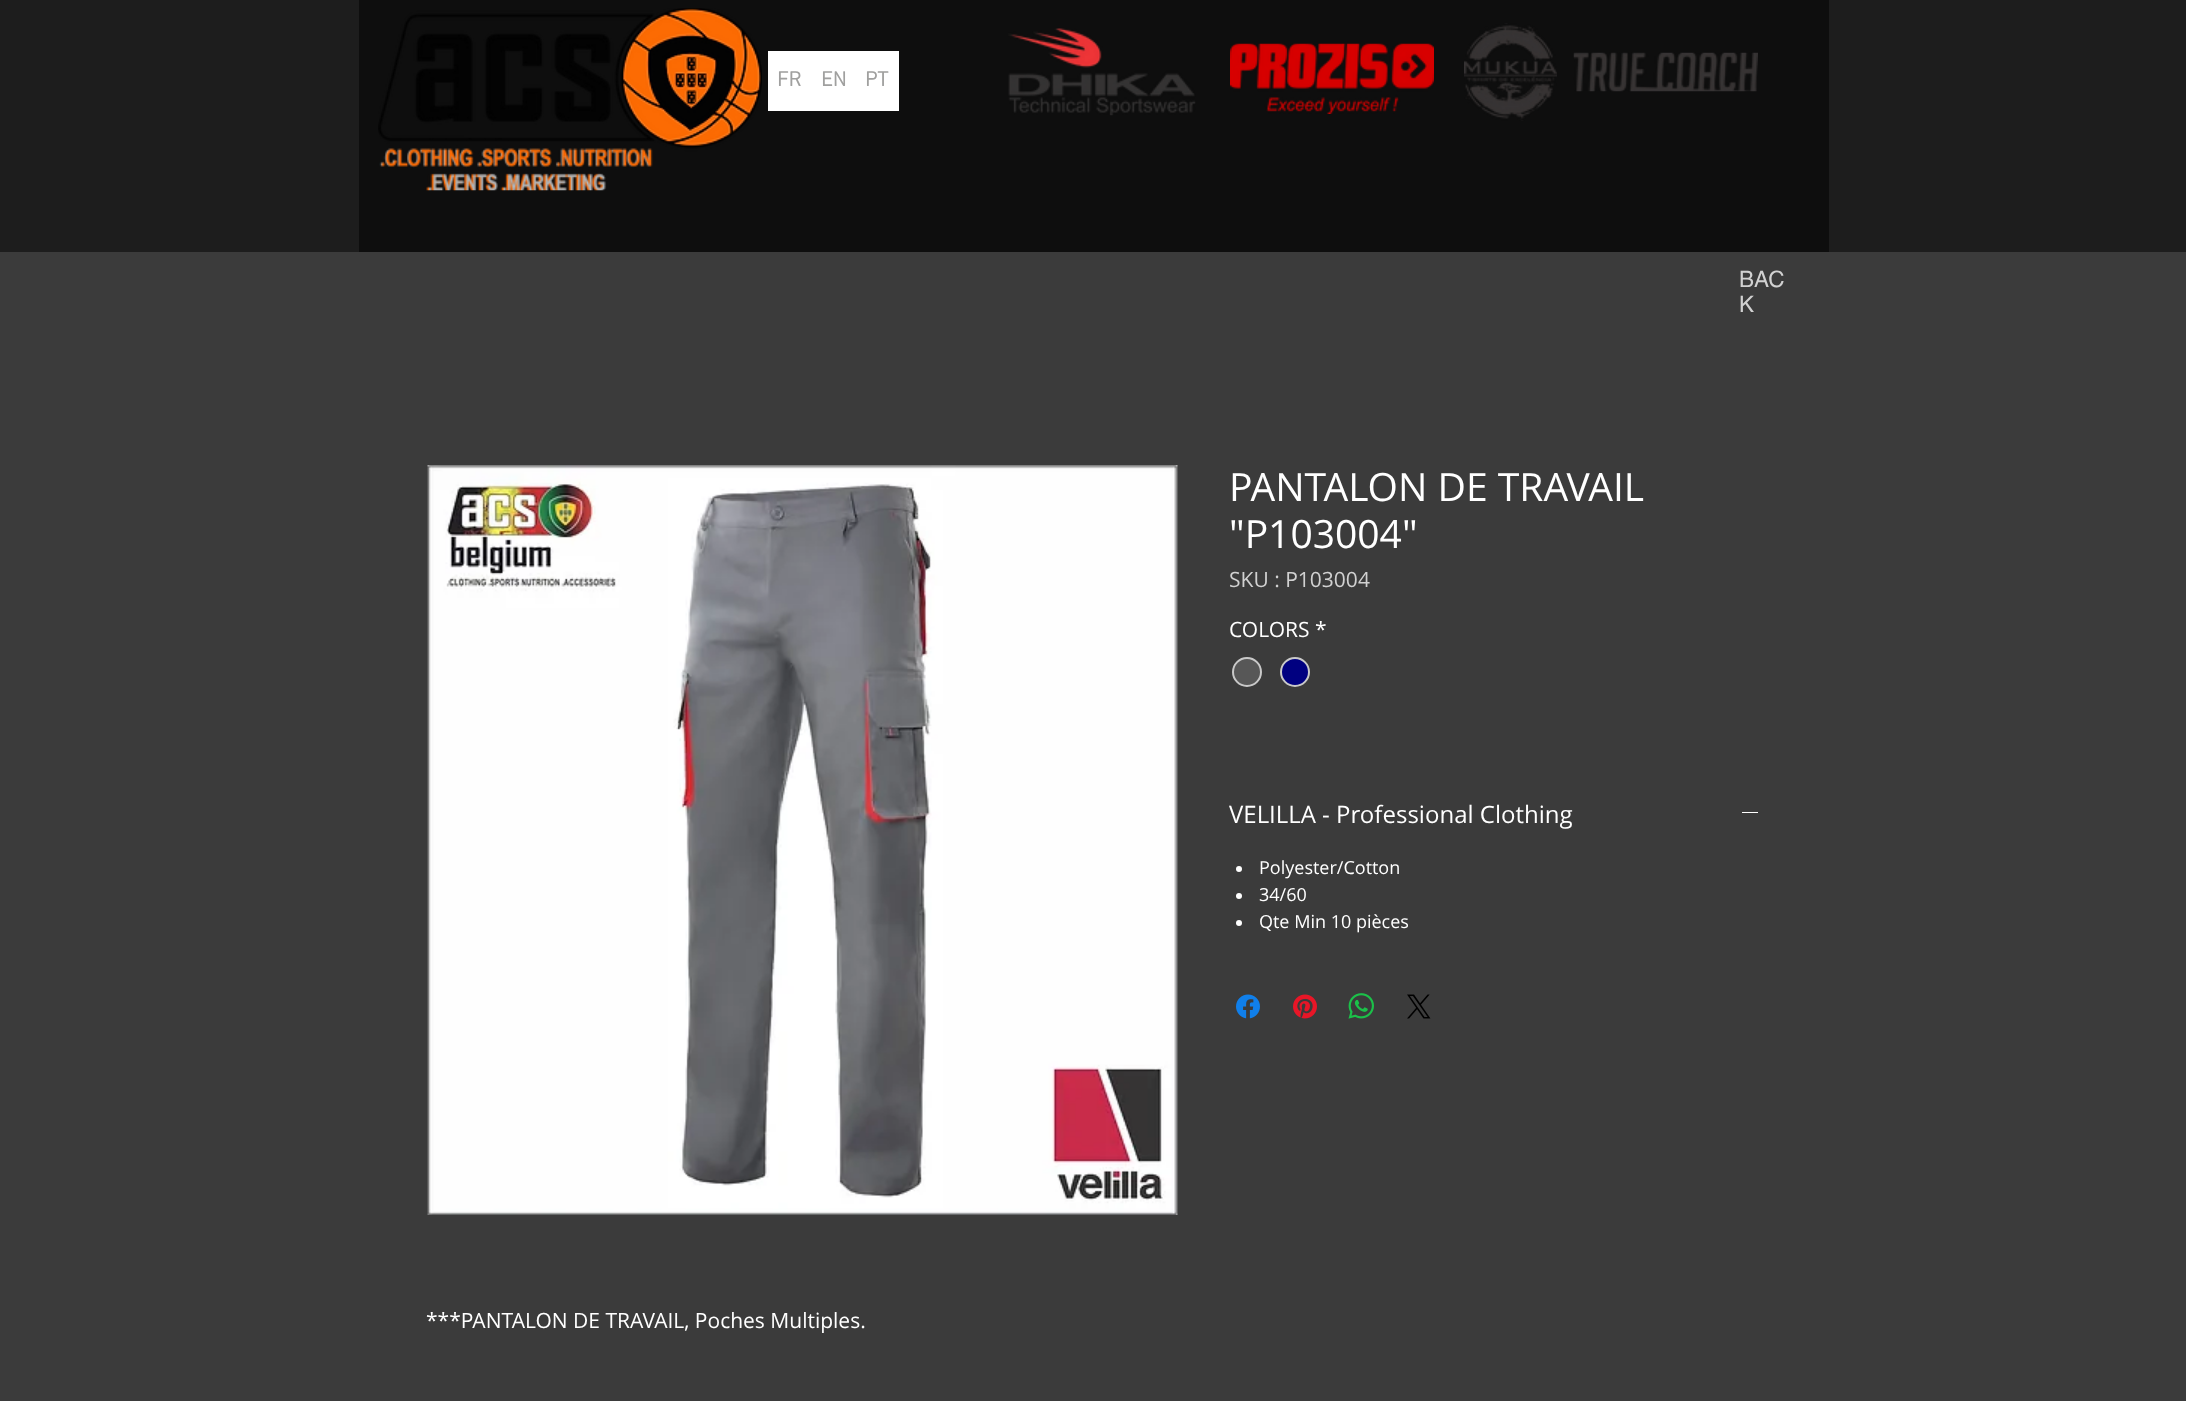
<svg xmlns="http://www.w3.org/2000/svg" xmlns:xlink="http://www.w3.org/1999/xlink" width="2186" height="1401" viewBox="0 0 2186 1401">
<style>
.cls-1{font:bold 21px 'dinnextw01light';fill:#a0a09f}
.cls-2{font:22.5px helvetica;fill:#d1d1d1}
.cls-3{font:39px Open Sans;fill:#ffffff}
.cls-4{font:21px Open Sans;fill:#d1d1d1}
.cls-5{font:21px Open Sans;fill:#ffffff}
.cls-6{font:24px Open Sans;fill:#ffffff}
.cls-7{font:18px Open Sans;fill:#ffffff}
</style>
<rect width="100%" height="100%" fill="#3b3b3b"/>
<rect fill="#1d1d1d" x="0" y="0" width="2186" height="252"/>
<rect fill="#0e0e0e" x="359" y="0" width="1470" height="252"/>
<image xlink:href="image0.png" x="378" y="8" width="384" height="183"/>
<rect fill="#ffffff" x="768" y="51" width="131" height="60"/>
<image xlink:href="image1.png" x="1008" y="28" width="188" height="88"/>
<image xlink:href="image2.png" x="1230" y="43" width="204" height="71"/>
<image xlink:href="image3.png" x="1464" y="23" width="93" height="98"/>
<image xlink:href="image4.png" x="1573" y="52" width="185" height="40"/>
<circle fill="#575757" stroke="#c9c9c9" stroke-width="2" cx="1247" cy="672" r="14"/>
<circle fill="#000080" stroke="#c9c9c9" stroke-width="2" cx="1295" cy="672" r="14"/>
<rect fill="#ffffff" x="1742" y="812" width="16" height="1"/>
<circle fill="#ffffff" cx="1239" cy="869" r="3"/>
<circle fill="#ffffff" cx="1239" cy="896" r="3"/>
<circle fill="#ffffff" cx="1239" cy="923" r="3"/>
<image xlink:href="image5.png" x="1236" y="994" width="24" height="25"/>
<image xlink:href="image6.png" x="1293" y="994" width="24" height="25"/>
<image xlink:href="image7.png" x="1348" y="993" width="26" height="26"/>
<image xlink:href="image8.png" x="1407" y="994" width="24" height="25"/>
<image xlink:href="image9.png" x="427" y="465" width="751" height="750"/>
<text class="cls-1" x="777" y="86">FR</text>
<text class="cls-1" x="821" y="86">EN</text>
<text class="cls-1" x="865" y="86">PT</text>
<text class="cls-2"><tspan x="1739" y="287">BAC</tspan><tspan x="1739" y="312">K</tspan></text>
<text class="cls-3"><tspan x="1229" y="501">PANTALON DE TRAVAIL</tspan><tspan x="1229" y="548">"P103004"</tspan></text>
<text class="cls-4" x="1229" y="587">SKU : P103004</text>
<text class="cls-5" x="1229" y="637">COLORS</text>
<text class="cls-5" x="1315" y="637">*</text>
<text class="cls-6" x="1229" y="823">VELILLA - Professional Clothing</text>
<text class="cls-7"><tspan x="1259" y="874">Polyester/Cotton</tspan><tspan x="1259" y="901">34/60</tspan><tspan x="1259" y="928">Qte Min 10 pièces</tspan></text>
<text class="cls-5" x="426" y="1328">***PANTALON DE TRAVAIL, Poches Multiples.</text>
</svg>
